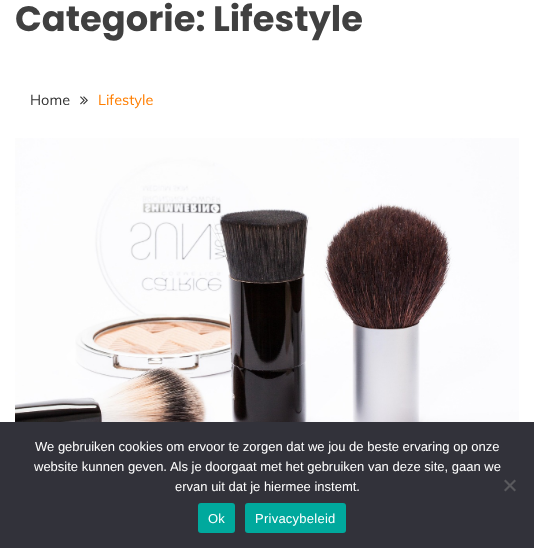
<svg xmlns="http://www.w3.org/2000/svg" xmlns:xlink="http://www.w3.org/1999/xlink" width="534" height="548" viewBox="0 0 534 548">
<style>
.cls-1{font:bold 35.25px Poppins;fill:#404040}
.cls-2{font:14.5px Muli;fill:#333333}
.cls-3{font:14.5px Muli;fill:#ff7e00}
.cls-4{font:13px Liberation Sans;fill:#ffffff}
.cls-5{font:13px Liberation Sans;letter-spacing:0.25px;fill:#ffffff}
</style>
<rect width="100%" height="100%" fill="#ffffff"/>
<image xlink:href="image0.png" x="80" y="96" width="8" height="9"/>
<image xlink:href="image1.png" x="15" y="138" width="504" height="284"/>
<rect fill="#32323a" x="0" y="422" width="534" height="126"/>
<path fill="#59595d" d="M514.5 479.5L516 481L505.5 491.5L504 490Z"/>
<path fill="#59595d" d="M504 481L505.5 479.5L516 490L514.5 491.5Z"/>
<rect fill="#00a99d" x="198" y="503" width="37" height="30" rx="3"/>
<rect fill="#00a99d" x="245" y="503" width="101" height="30" rx="3"/>
<text class="cls-1" x="15" y="31">Categorie: Lifestyle</text>
<text class="cls-2" x="30" y="105">Home</text>
<text class="cls-3" x="98" y="105">Lifestyle</text>
<text class="cls-4" x="35" y="451">We gebruiken cookies om ervoor te zorgen dat we jou de beste ervaring op onze</text>
<text class="cls-4" x="34" y="471">website kunnen geven. Als je doorgaat met het gebruiken van deze site, gaan we</text>
<text class="cls-4" x="175" y="491">ervan uit dat je hiermee instemt.</text>
<text class="cls-5" x="208" y="523">Ok</text>
<text class="cls-5" x="255" y="523">Privacybeleid</text>
</svg>
